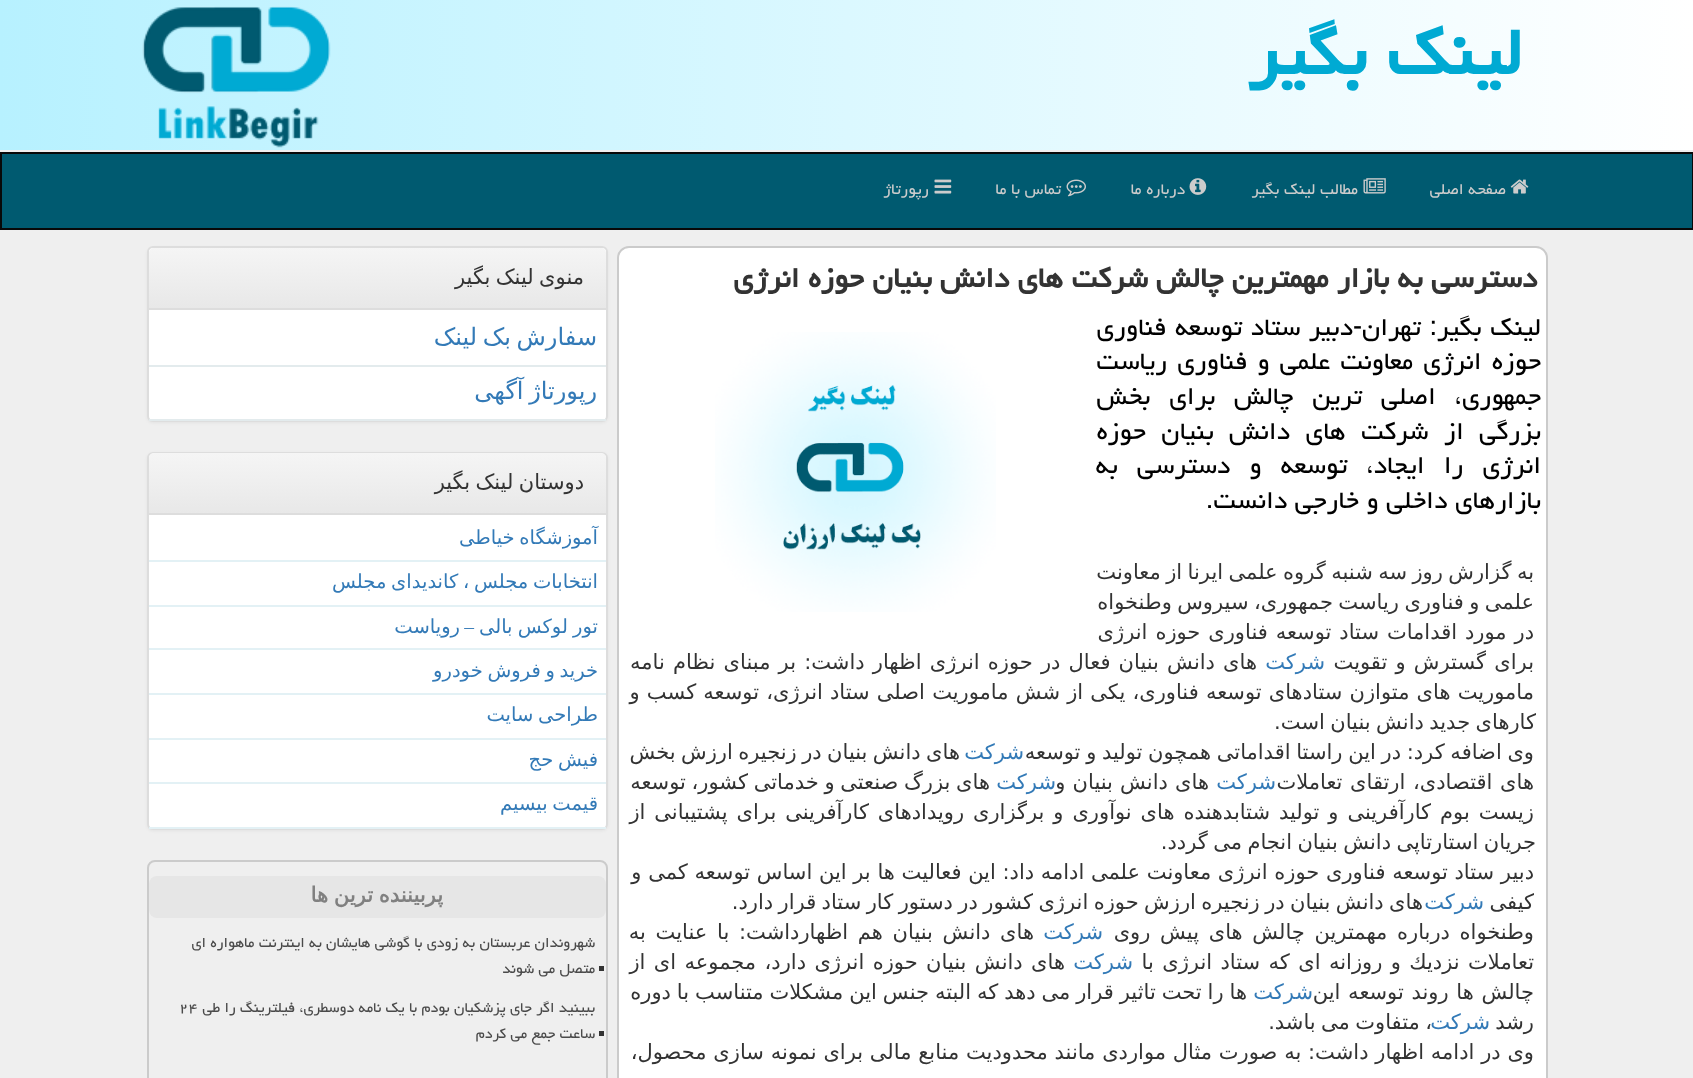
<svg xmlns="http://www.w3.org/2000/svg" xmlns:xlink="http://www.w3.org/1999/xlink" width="1693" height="1078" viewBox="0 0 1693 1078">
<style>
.cls-1{font:bold 84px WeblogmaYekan;direction:rtl;fill:#00aad3}
.cls-2{font:19.5px WeblogmaYekan;direction:rtl;fill:#cccccc}
.cls-3{font:bold 35.7px WeblogmaYekan;direction:rtl;fill:#333333}
.cls-4{font:31.5px WeblogmaYekan;direction:rtl;fill:#000000}
.cls-5{font:21px DejaVu Sans;direction:rtl;fill:#333333}
.cls-6{font:21px DejaVu Sans;direction:rtl;fill:#337ab7}
.cls-7{font:24px DejaVu Sans;direction:rtl;fill:#337ab7}
.cls-8{font:19.5px DejaVu Sans;direction:rtl;fill:#337ab7}
.cls-9{font:19.5px Liberation Serif;direction:rtl;fill:#337ab7}
.cls-10{font:bold 21px DejaVu Sans;direction:rtl;fill:#808080}
.cls-11{font:18px WeblogmaYekan;direction:rtl;fill:#4a4a4a}
.cls-12{font:18px WeblogmaYekan;fill:#4a4a4a}
</style>
<defs>
<linearGradient id="g1" gradientUnits="userSpaceOnUse" x1="0" y1="75" x2="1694" y2="75"><stop offset="0" stop-color="#b7f1ff"/><stop offset="1" stop-color="#ffffff"/></linearGradient>
<linearGradient id="g2" gradientUnits="userSpaceOnUse" x1="377" y1="247" x2="377" y2="308"><stop offset="0" stop-color="#f5f5f5"/><stop offset="1" stop-color="#e8e8e8"/></linearGradient>
<linearGradient id="g3" gradientUnits="userSpaceOnUse" x1="377" y1="453" x2="377" y2="513"><stop offset="0" stop-color="#f5f5f5"/><stop offset="1" stop-color="#e8e8e8"/></linearGradient>
</defs>
<rect width="100%" height="100%" fill="#efefef"/>
<rect fill="url(#g1)" x="0" y="0" width="1693" height="150"/>
<image xlink:href="image0.png" x="142" y="6" width="189" height="142"/>
<rect fill="#005a70" stroke="#080808" stroke-width="2" x="1" y="153" width="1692" height="76"/>
<image xlink:href="image1.png" x="1510" y="179" width="19" height="15"/>
<image xlink:href="image2.png" x="1363" y="178" width="23" height="16"/>
<image xlink:href="image3.png" x="1189" y="178" width="18" height="17"/>
<image xlink:href="image4.png" x="1066" y="179" width="20" height="18"/>
<image xlink:href="image5.png" x="934" y="179" width="18" height="15"/>
<rect fill="#ffffff" stroke="#cbcbcb" stroke-width="2" x="618" y="247" width="929" height="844" rx="11"/>
<image xlink:href="image6.png" x="715" y="332" width="281" height="280"/>
<rect fill="#000000" fill-opacity="0.05" filter="blur(1.5px)" x="147" y="248" width="461" height="175" rx="6"/>
<rect fill="#ffffff" stroke="#dddddd" stroke-width="2" x="148" y="247" width="459" height="174" rx="5"/>
<path fill="url(#g2)" d="M154 248H601C604 248 606 250 606 253V308H149V253C149 250 151 248 154 248Z"/>
<rect fill="#dddddd" x="149" y="308" width="457" height="2"/>
<rect fill="#e3ebed" x="149" y="365" width="457" height="2"/>
<rect fill="#e3ebed" x="149" y="419" width="457" height="2"/>
<rect fill="#000000" fill-opacity="0.05" filter="blur(1.5px)" x="147" y="453" width="461" height="378" rx="6"/>
<rect fill="#ffffff" stroke="#dddddd" stroke-width="2" x="148" y="453" width="459" height="376" rx="5"/>
<path fill="url(#g3)" d="M154 453H601C604 453 606 455 606 458V513H149V458C149 455 151 453 154 453Z"/>
<rect fill="#dddddd" x="149" y="513" width="457" height="2"/>
<rect fill="#e3f1f5" x="149" y="560" width="457" height="2"/>
<rect fill="#e3f1f5" x="149" y="605" width="457" height="2"/>
<rect fill="#e3f1f5" x="149" y="648" width="457" height="2"/>
<rect fill="#e3f1f5" x="149" y="693" width="457" height="2"/>
<rect fill="#e3f1f5" x="149" y="738" width="457" height="2"/>
<rect fill="#e3f1f5" x="149" y="782" width="457" height="2"/>
<rect fill="#e3f1f5" x="149" y="827" width="457" height="2"/>
<rect fill="none" stroke="#cbcbcb" stroke-width="2" x="148" y="861" width="459" height="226" rx="7"/>
<rect fill="#e6e6e6" x="149" y="876" width="457" height="42" rx="8"/>
<rect fill="#333333" x="599" y="966" width="5" height="5"/>
<rect fill="#333333" x="599" y="1031" width="5" height="5"/>
<text class="cls-1" x="1522" y="74">لینك بگیر</text>
<text class="cls-2" x="1506" y="194">صفحه اصلی</text>
<text class="cls-2" x="1358" y="194">مطالب لینك بگیر</text>
<text class="cls-2" x="1185" y="194">درباره ما</text>
<text class="cls-2" x="1061" y="194">تماس با ما</text>
<text class="cls-2" x="929" y="194">رپورتاژ</text>
<text class="cls-3" x="1537" y="287">دسترسی به بازار مهمترین چالش شركت های دانش بنیان حوزه انرژی</text>
<text class="cls-4"><tspan x="1541" y="335" word-spacing="1">لینك بگیر: تهران-دبیر ستاد توسعه فناوری</tspan><tspan x="1541" y="369" word-spacing="2.5">حوزه انرژی معاونت علمی و فناوری ریاست</tspan><tspan x="1541" y="404" word-spacing="11.5">جمهوری، اصلی ترین چالش برای بخش</tspan><tspan x="1541" y="439" word-spacing="8">بزرگی از شركت های دانش بنیان حوزه</tspan><tspan x="1541" y="473" word-spacing="11.5">انرژی را ایجاد، توسعه و دسترسی به</tspan><tspan x="1541" y="508">بازارهای داخلی و خارجی دانست.</tspan></text>
<text class="cls-5"><tspan x="1534" y="579" word-spacing="-1.25">به گزارش روز سه شنبه گروه علمی ایرنا از معاونت</tspan><tspan x="1534" y="609" word-spacing="-1.25">علمی و فناوری ریاست جمهوری، سیروس وطنخواه</tspan><tspan x="1534" y="639" word-spacing="1.25">در مورد اقدامات ستاد توسعه فناوری حوزه انرژی</tspan><tspan x="1534" y="669" word-spacing="1.5">برای گسترش و تقویت</tspan></text>
<text class="cls-6" x="1325" y="669">شركت</text>
<text class="cls-5" x="1257" y="669" word-spacing="1.5">های دانش بنیان فعال در حوزه انرژی اظهار داشت: بر مبنای نظام نامه</text>
<text class="cls-5" x="1534" y="699" word-spacing="0.5">ماموریت های متوازن ستادهای توسعه فناوری، یكی از شش ماموریت اصلی ستاد انرژی، توسعه كسب و</text>
<text class="cls-5" x="1536" y="729" word-spacing="-1.25">كارهای جدید دانش بنیان است.</text>
<text class="cls-5" x="1534" y="759" word-spacing="-1">وی اضافه كرد: در این راستا اقداماتی همچون تولید و توسعه</text>
<text class="cls-6" x="1024" y="759">شركت</text>
<text class="cls-5" x="960" y="759" word-spacing="-1.25">های دانش بنیان در زنجیره ارزش بخش</text>
<text class="cls-5" x="1534" y="789" word-spacing="1">های اقتصادی، ارتقای تعاملات</text>
<text class="cls-6" x="1276" y="789">شركت</text>
<text class="cls-5" x="1209" y="789" word-spacing="0.5">های دانش بنیان و</text>
<text class="cls-6" x="1056" y="789">شركت</text>
<text class="cls-5" x="990" y="789" word-spacing="-1">های بزرگ صنعتی و خدماتی كشور، توسعه</text>
<text class="cls-5" x="1534" y="819" word-spacing="2.25">زیست بوم كارآفرینی و تولید شتابدهنده های نوآوری و برگزاری رویدادهای كارآفرینی برای پشتیبانی از</text>
<text class="cls-5" x="1536" y="849" word-spacing="-1.25">جریان استارتاپی دانش بنیان انجام می گردد.</text>
<text class="cls-5"><tspan x="1534" y="879">دبیر ستاد توسعه فناوری حوزه انرژی معاونت علمی ادامه داد: این فعالیت ها بر این اساس توسعه كمی و</tspan><tspan x="1534" y="909">كیفی</tspan></text>
<text class="cls-6" x="1484" y="909">شركت</text>
<text class="cls-5" x="1423" y="909" word-spacing="-1.25">های دانش بنیان در زنجیره ارزش حوزه انرژی كشور در دستور كار ستاد قرار دارد.</text>
<text class="cls-5" x="1534" y="939" word-spacing="3">وطنخواه درباره مهمترین چالش های پیش روی</text>
<text class="cls-6" x="1103" y="939">شركت</text>
<text class="cls-5" x="1034" y="939" word-spacing="3">های دانش بنیان هم اظهارداشت: با عنایت به</text>
<text class="cls-5" x="1534" y="969" word-spacing="1.75">تعاملات نزدیك و روزانه ای كه ستاد انرژی با</text>
<text class="cls-6" x="1133" y="969">شركت</text>
<text class="cls-5" x="1065" y="969" word-spacing="1.75">های دانش بنیان حوزه انرژی دارد، مجموعه ای از</text>
<text class="cls-5" x="1534" y="999" word-spacing="1">چالش ها روند توسعه این</text>
<text class="cls-6" x="1313" y="999">شركت</text>
<text class="cls-5" x="1247" y="999" word-spacing="-0.75">ها را تحت تاثیر قرار می دهد كه البته جنس این مشكلات متناسب با دوره</text>
<text class="cls-5" x="1534" y="1029">رشد</text>
<text class="cls-6" x="1490" y="1029">شركت</text>
<text class="cls-5" x="1432" y="1029" word-spacing="-1.25">، متفاوت می باشد.</text>
<text class="cls-5" x="1534" y="1059" word-spacing="0.1">وی در ادامه اظهار داشت: به صورت مثال مواردی مانند محدودیت منابع مالی برای نمونه سازی محصول،</text>
<text class="cls-5" x="584" y="284" word-spacing="-1.25">منوی لینک بگیر</text>
<text class="cls-7" x="597" y="345" word-spacing="-2">سفارش بک لینک</text>
<text class="cls-7" x="597" y="399" word-spacing="-2">رپورتاژ آگهی</text>
<text class="cls-5" x="584" y="489" word-spacing="-1.25">دوستان لینک بگیر</text>
<text class="cls-8" x="598" y="544" word-spacing="-1.5">آموزشگاه خیاطی</text>
<text class="cls-8" x="598" y="588" word-spacing="-1.5">انتخابات مجلس ، کاندیدای مجلس</text>
<text class="cls-8" x="598" y="633" word-spacing="-1">تور لوکس بالی</text>
<text class="cls-9" x="474" y="633">–</text>
<text class="cls-8" x="460" y="633">رویاست</text>
<text class="cls-8" x="598" y="677" word-spacing="-1.5">خرید و فروش خودرو</text>
<text class="cls-8" x="598" y="721" word-spacing="-1.5">طراحی سایت</text>
<text class="cls-8" x="598" y="766" word-spacing="-1.5">فیش حج</text>
<text class="cls-8" x="598" y="810" word-spacing="-1.5">قیمت بیسیم</text>
<text class="cls-10" x="443" y="902" word-spacing="-1">پربیننده ترین ها</text>
<text class="cls-11"><tspan x="595" y="947">شهروندان عربستان به زودی با گوشی هایشان به اینترنت ماهواره ای</tspan><tspan x="595" y="973">متصل می شوند</tspan></text>
<text class="cls-11" x="595" y="1012">ببینید اگر جای پزشکیان بودم با یک نامه دوسطری، فیلترینگ را طی</text>
<text class="cls-12" x="179" y="1012">۲۴</text>
<text class="cls-11" x="595" y="1038">ساعت جمع می کردم</text>
</svg>
